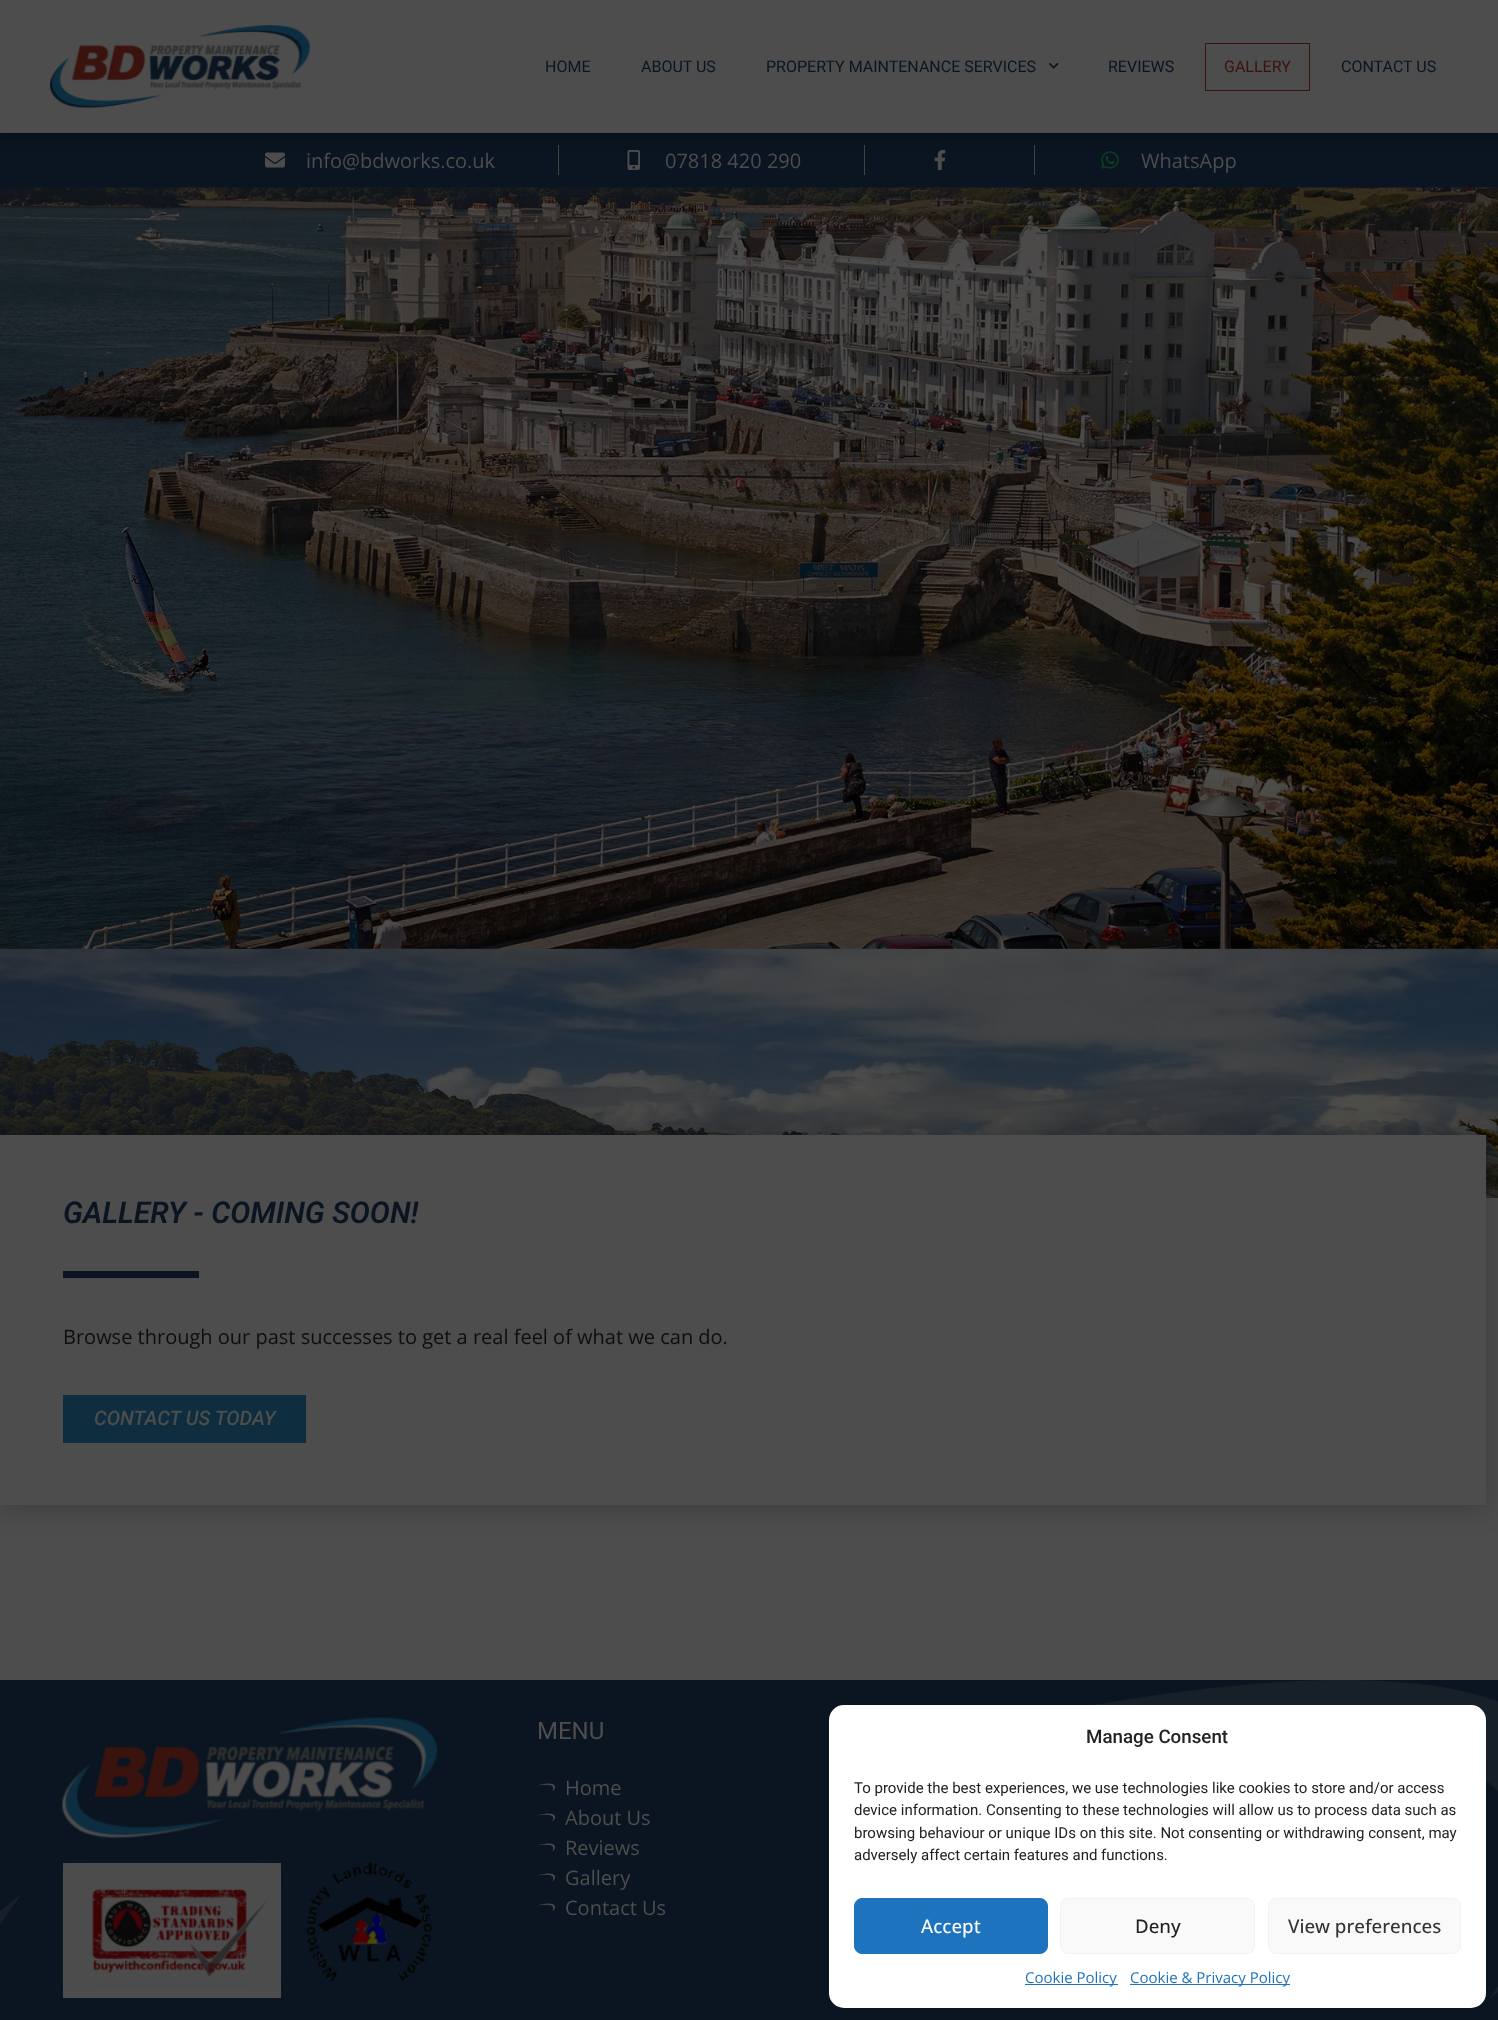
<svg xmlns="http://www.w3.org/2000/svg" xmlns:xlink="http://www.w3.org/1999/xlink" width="1498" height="2020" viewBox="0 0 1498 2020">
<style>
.cls-1{font:16px Roboto;fill:#0a1521}
.cls-2{font:16px Roboto;fill:#3b130e}
.cls-3{font:20px Open Sans;fill:#4d4d4d}
.cls-4{font:italic 600 30px Roboto;fill:#0a1521}
.cls-5{font:20px Open Sans;fill:#0e0e0e}
.cls-6{font:italic 500 20px Roboto;fill:#4d4d4d}
.cls-7{font:24px Roboto;fill:#4d4d4d}
.cls-8{font:500 18.75px Roboto;fill:#222222}
.cls-9{font:15px Roboto;fill:#222222}
.cls-10{font:500 18.75px Open Sans;fill:#ffffff}
.cls-11{font:500 18.75px Open Sans;fill:#222222}
.cls-12{font:500 18.75px Open Sans;fill:#333333}
.cls-13{font:15px Open Sans;fill:#1e73be}
</style>
<rect width="100%" height="100%" fill="#4d4d4d"/>
<rect fill="#0a1521" x="0" y="133" width="1498" height="55"/>
<image xlink:href="image2.png" x="265" y="152" width="20" height="16"/>
<rect fill="#424242" x="558" y="145" width="1" height="30"/>
<image xlink:href="image3.png" x="627" y="150" width="13" height="20"/>
<rect fill="#424242" x="864" y="145" width="1" height="30"/>
<image xlink:href="image4.png" x="934" y="150" width="12" height="20"/>
<rect fill="#424242" x="1034" y="145" width="1" height="30"/>
<image xlink:href="image5.png" x="1101" y="151" width="18" height="18"/>
<rect fill="#000000" fill-opacity="0.2" filter="blur(6px)" x="-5" y="-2" width="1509" height="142"/>
<rect fill="#4d4d4d" x="0" y="0" width="1498" height="133"/>
<image xlink:href="image0.png" x="50" y="25" width="260" height="83"/>
<image xlink:href="image1.png" x="1048" y="63" width="11" height="6"/>
<rect fill="#3b130e" x="1205" y="43" width="105" height="1"/>
<rect fill="#3b130e" x="1205" y="43" width="1" height="48"/>
<rect fill="#3b130e" x="1309" y="43" width="1" height="48"/>
<rect fill="#3b130e" x="1205" y="90" width="105" height="1"/>
<rect fill="#2a2a2a" x="1486" y="1197" width="12" height="1"/>
<image xlink:href="image6.png" x="0" y="187" width="1498" height="1011"/>
<rect fill="#000000" fill-opacity="0.2" filter="blur(12.5px)" x="-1" y="1138" width="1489" height="372"/>
<rect fill="#4d4d4d" x="0" y="1135" width="1486" height="370"/>
<rect fill="#0a1521" x="63" y="1271" width="136" height="7"/>
<rect fill="#0e2e40" x="63" y="1395" width="243" height="48"/>
<rect fill="#0a1521" x="0" y="1680" width="1498" height="340"/>
<image xlink:href="image7.png" x="0" y="1680" width="1498" height="319"/>
<image xlink:href="image8.png" x="62" y="1717" width="376" height="121"/>
<rect fill="#4d4d4d" x="63" y="1863" width="218" height="135"/>
<image xlink:href="image9.png" x="62" y="1862" width="220" height="129"/>
<image xlink:href="image10.png" x="306" y="1862" width="126" height="120"/>
<image xlink:href="image11.png" x="538" y="1783" width="17" height="9"/>
<image xlink:href="image11.png" x="538" y="1813" width="17" height="9"/>
<image xlink:href="image11.png" x="538" y="1843" width="17" height="9"/>
<image xlink:href="image11.png" x="538" y="1873" width="17" height="9"/>
<image xlink:href="image11.png" x="538" y="1903" width="17" height="9"/>
<rect fill="#ffffff" x="829" y="1705" width="657" height="303" rx="15"/>
<rect fill="#1e73be" stroke="#1e73be" x="854.5" y="1898.5" width="193" height="55" rx="7.5"/>
<rect fill="#f9f9f9" stroke="#f2f2f2" x="1060.5" y="1898.5" width="194" height="55" rx="7.5"/>
<rect fill="#f9f9f9" stroke="#f2f2f2" x="1268.5" y="1898.5" width="192" height="55" rx="7.5"/>
<rect fill="#1e73be" x="1025" y="1984" width="93" height="1"/>
<rect fill="#1e73be" x="1130" y="1984" width="160" height="1"/>
<text class="cls-1" x="545" y="72">HOME</text>
<text class="cls-1" x="641" y="72">ABOUT US</text>
<text class="cls-1" x="766" y="72">PROPERTY MAINTENANCE SERVICES</text>
<text class="cls-1" x="1108" y="72">REVIEWS</text>
<text class="cls-2" x="1224" y="72">GALLERY</text>
<text class="cls-1" x="1341" y="72">CONTACT US</text>
<text class="cls-3" x="306" y="168">info@bdworks.co.uk</text>
<text class="cls-3" x="665" y="168">07818 420 290</text>
<text class="cls-3" x="1141" y="168">WhatsApp</text>
<text class="cls-4" x="63" y="1223">GALLERY - COMING SOON!</text>
<text class="cls-5" x="63" y="1344">Browse through our past successes to get a real feel of what we can do.</text>
<text class="cls-6" x="94" y="1425">CONTACT US TODAY</text>
<text class="cls-7" x="537" y="1739">MENU</text>
<text class="cls-3"><tspan x="565" y="1795">Home</tspan><tspan x="565" y="1825">About Us</tspan><tspan x="565" y="1855">Reviews</tspan><tspan x="565" y="1885">Gallery</tspan><tspan x="565" y="1915">Contact Us</tspan></text>
<text class="cls-8" x="1086" y="1743">Manage Consent</text>
<text class="cls-9"><tspan x="854" y="1793">To provide the best experiences, we use technologies like cookies to store and/or access</tspan><tspan x="854" y="1815">device information. Consenting to these technologies will allow us to process data such as</tspan><tspan x="854" y="1838">browsing behaviour or unique IDs on this site. Not consenting or withdrawing consent, may</tspan><tspan x="854" y="1860">adversely affect certain features and functions.</tspan></text>
<text class="cls-10" x="921" y="1933">Accept</text>
<text class="cls-11" x="1135" y="1933">Deny</text>
<text class="cls-12" x="1288" y="1933">View preferences</text>
<text class="cls-13" x="1025" y="1983">Cookie Policy</text>
<text class="cls-13" x="1130" y="1983">Cookie &amp; Privacy Policy</text>
</svg>
